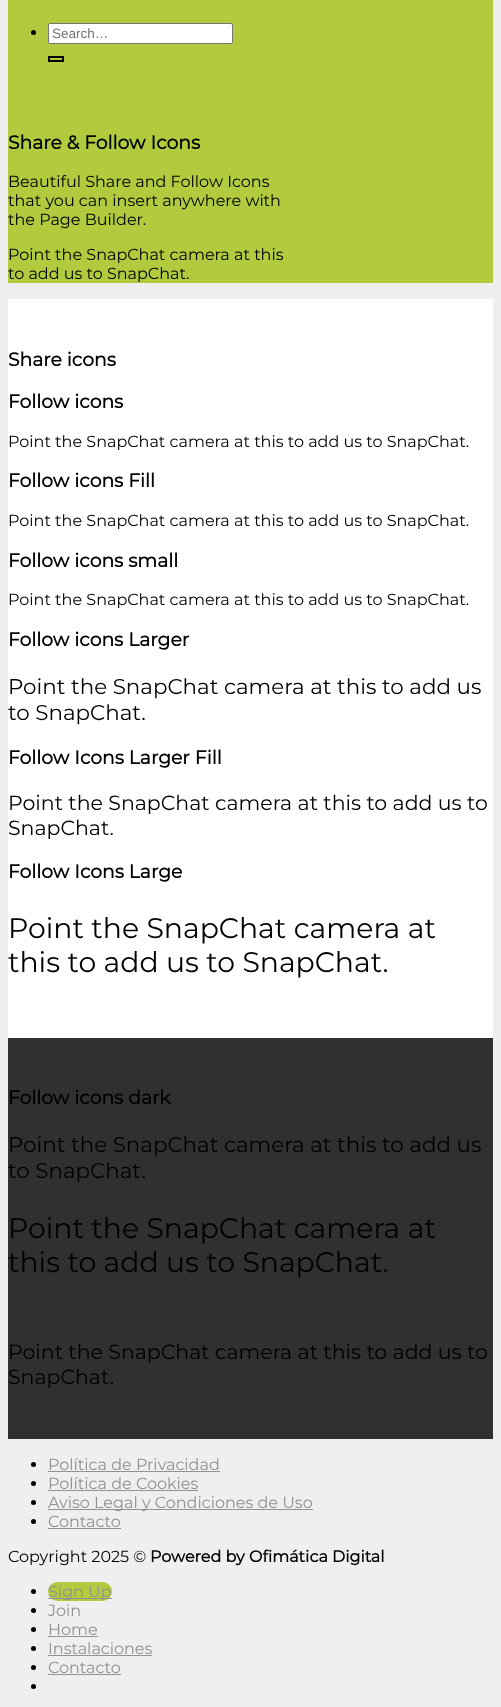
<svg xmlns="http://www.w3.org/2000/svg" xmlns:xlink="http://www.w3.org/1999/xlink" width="501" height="1707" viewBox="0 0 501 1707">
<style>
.cls-1{font:13.5px Liberation Sans;fill:#757575}
.cls-2{font:bold 18.75px Montserrat;fill:#000000}
.cls-3{font:16px Montserrat;fill:#000000}
.cls-4{font:21.4px Montserrat;fill:#000000}
.cls-5{font:20.5px Montserrat;fill:#000000}
.cls-6{font:28.3px Montserrat;fill:#000000}
.cls-7{font:16px Montserrat;fill:#919191}
.cls-8{font:bold 16px Montserrat;fill:#000000}
</style>
<rect width="100%" height="100%" fill="#efefef"/>
<rect fill="#b1ca3e" x="8" y="0" width="485" height="283"/>
<circle fill="#000000" cx="33.5" cy="32.5" r="2.5"/>
<rect fill="#ffffff" stroke="#767676" x="48.5" y="23.5" width="184" height="20" rx="1.5"/>
<rect fill="none" stroke="#000000" stroke-width="2" x="49" y="57" width="14" height="4"/>
<rect fill="#ffffff" x="8" y="299" width="485" height="739"/>
<rect fill="#303030" x="8" y="1038" width="485" height="401"/>
<circle fill="#000000" cx="33.5" cy="1464.5" r="2.5"/>
<rect fill="#919191" x="48" y="1471" width="172" height="1"/>
<circle fill="#000000" cx="33.5" cy="1483.5" r="2.5"/>
<rect fill="#919191" x="48" y="1490" width="150" height="1"/>
<circle fill="#000000" cx="33.5" cy="1502.5" r="2.5"/>
<rect fill="#919191" x="48" y="1509" width="265" height="1"/>
<circle fill="#000000" cx="33.5" cy="1521.5" r="2.5"/>
<rect fill="#919191" x="48" y="1528" width="73" height="1"/>
<circle fill="#000000" cx="33.5" cy="1591.5" r="2.5"/>
<rect fill="#b1ca3e" x="48" y="1582" width="64" height="19" rx="9.5"/>
<rect fill="#919191" x="48" y="1598" width="64" height="1"/>
<circle fill="#000000" cx="33.5" cy="1610.5" r="2.5"/>
<circle fill="#000000" cx="33.5" cy="1629.5" r="2.5"/>
<rect fill="#919191" x="48" y="1636" width="50" height="1"/>
<circle fill="#000000" cx="33.5" cy="1648.5" r="2.5"/>
<rect fill="#919191" x="48" y="1655" width="104" height="1"/>
<circle fill="#000000" cx="33.5" cy="1667.5" r="2.5"/>
<rect fill="#919191" x="48" y="1674" width="73" height="1"/>
<circle fill="#000000" cx="33.5" cy="1686.5" r="2.5"/>
<text class="cls-1" x="52" y="38">Search…</text>
<text class="cls-2" x="8" y="149">Share &amp; Follow Icons</text>
<text class="cls-3"><tspan x="8" y="187">Beautiful Share and Follow Icons</tspan><tspan x="8" y="206">that you can insert anywhere with</tspan><tspan x="8" y="225">the Page Builder.</tspan></text>
<text class="cls-3"><tspan x="8" y="260">Point the SnapChat camera at this</tspan><tspan x="8" y="279">to add us to SnapChat.</tspan></text>
<text class="cls-2" x="8" y="366">Share icons</text>
<text class="cls-2" x="8" y="408">Follow icons</text>
<text class="cls-3" x="8" y="447">Point the SnapChat camera at this to add us to SnapChat.</text>
<text class="cls-2" x="8" y="487">Follow icons Fill</text>
<text class="cls-3" x="8" y="526">Point the SnapChat camera at this to add us to SnapChat.</text>
<text class="cls-2" x="8" y="567">Follow icons small</text>
<text class="cls-3" x="8" y="605">Point the SnapChat camera at this to add us to SnapChat.</text>
<text class="cls-2" x="8" y="646">Follow icons Larger</text>
<text class="cls-4"><tspan x="8" y="694">Point the SnapChat camera at this to add us</tspan><tspan x="8" y="720">to SnapChat.</tspan></text>
<text class="cls-2" x="8" y="764">Follow Icons Larger Fill</text>
<text class="cls-5"><tspan x="8" y="810">Point the SnapChat camera at this to add us to</tspan><tspan x="8" y="835">SnapChat.</tspan></text>
<text class="cls-2" x="8" y="878">Follow Icons Large</text>
<text class="cls-6"><tspan x="8" y="938">Point the SnapChat camera at</tspan><tspan x="8" y="972">this to add us to SnapChat.</tspan></text>
<text class="cls-2" x="8" y="1104">Follow icons dark</text>
<text class="cls-4"><tspan x="8" y="1152">Point the SnapChat camera at this to add us</tspan><tspan x="8" y="1178">to SnapChat.</tspan></text>
<text class="cls-6"><tspan x="8" y="1238">Point the SnapChat camera at</tspan><tspan x="8" y="1272">this to add us to SnapChat.</tspan></text>
<text class="cls-5"><tspan x="8" y="1359">Point the SnapChat camera at this to add us to</tspan><tspan x="8" y="1384">SnapChat.</tspan></text>
<text class="cls-7"><tspan x="48" y="1470">Política de Privacidad</tspan><tspan x="48" y="1489">Política de Cookies</tspan><tspan x="48" y="1508">Aviso Legal y Condiciones de Uso</tspan><tspan x="48" y="1527">Contacto</tspan></text>
<text class="cls-3" x="8" y="1562">Copyright 2025 ©</text>
<text class="cls-8" x="150" y="1562">Powered by Ofimática Digital</text>
<text class="cls-7"><tspan x="48" y="1597">Sign Up</tspan><tspan x="48" y="1616">Join</tspan><tspan x="48" y="1635">Home</tspan><tspan x="48" y="1654">Instalaciones</tspan><tspan x="48" y="1673">Contacto</tspan></text>
</svg>
